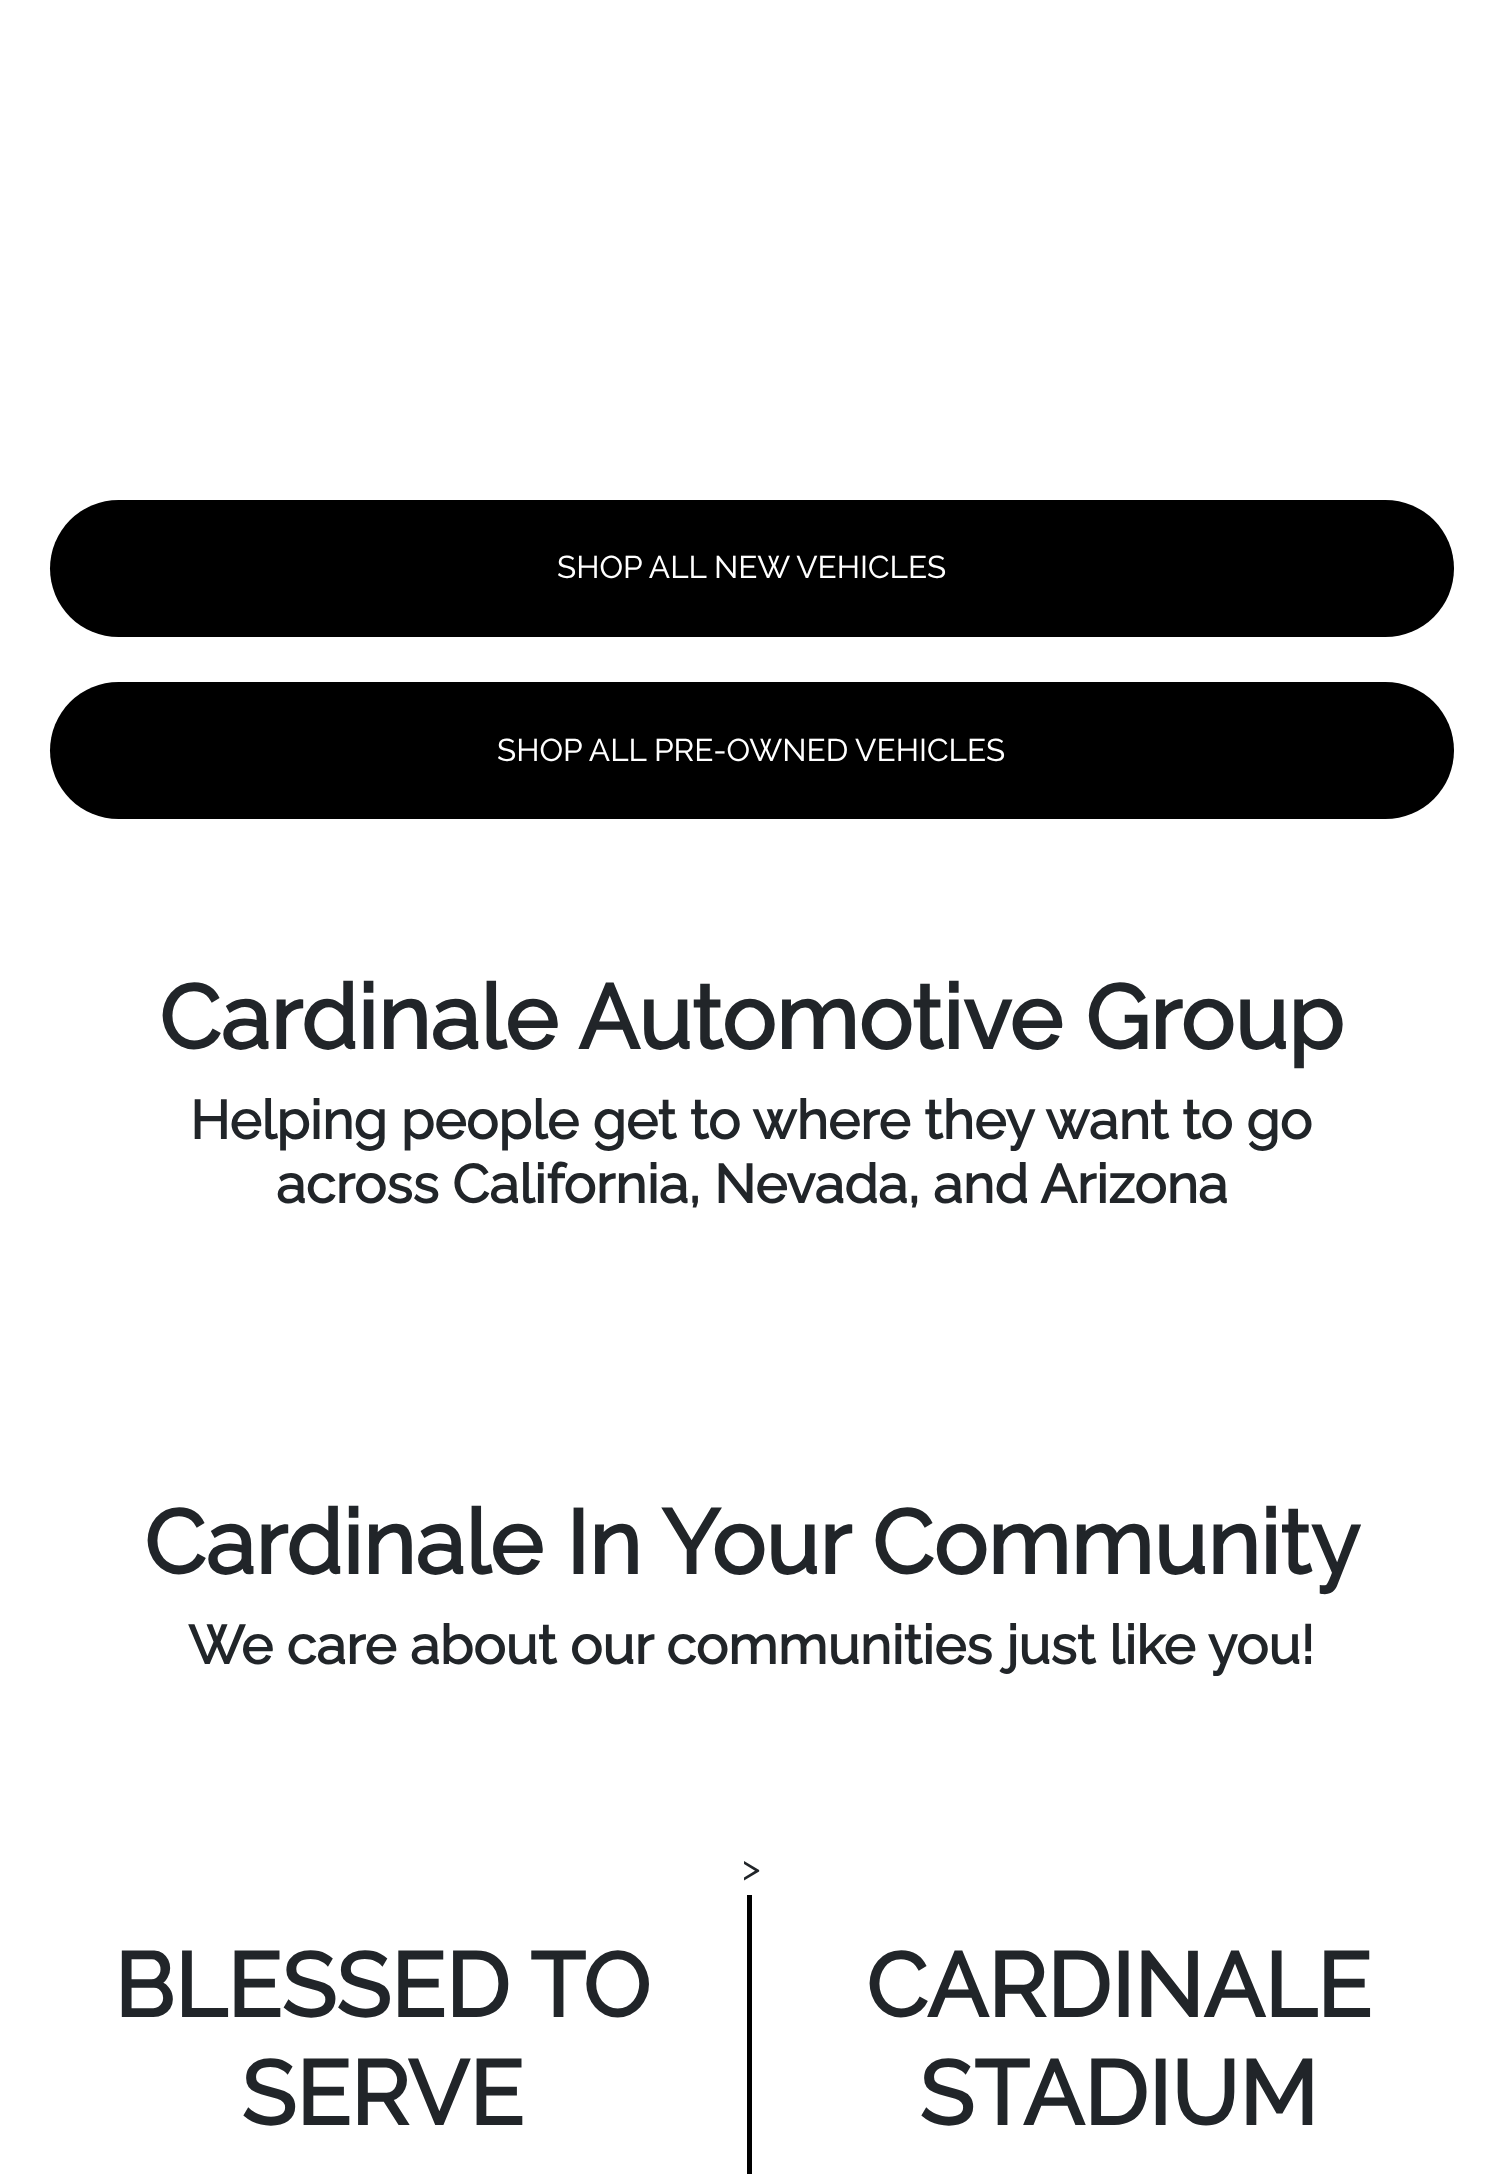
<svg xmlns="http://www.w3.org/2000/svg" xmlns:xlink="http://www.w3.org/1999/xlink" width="1502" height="2174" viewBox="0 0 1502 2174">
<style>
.cls-1{font:31.5px Raleway;fill:#ffffff}
.cls-2{font:bold 90px Raleway;fill:#212529}
.cls-3{font:bold 54px Raleway;fill:#212529}
.cls-4{font:36px Raleway;fill:#212529}
</style>
<rect width="100%" height="100%" fill="#ffffff"/>
<rect fill="#000000" x="50" y="500" width="1404" height="137" rx="68.5"/>
<rect fill="#000000" x="50" y="682" width="1404" height="137" rx="68.5"/>
<rect fill="#000000" x="747" y="1895" width="5" height="279"/>
<text class="cls-1" x="557" y="578">SHOP ALL NEW VEHICLES</text>
<text class="cls-1" x="497" y="761">SHOP ALL PRE-OWNED VEHICLES</text>
<text class="cls-2" x="159" y="1049">Cardinale Automotive Group</text>
<text class="cls-3" x="190" y="1139">Helping people get to where they want to go</text>
<text class="cls-3" x="276" y="1203">across California, Nevada, and Arizona</text>
<text class="cls-2" x="144" y="1574">Cardinale In Your Community</text>
<text class="cls-3" x="188" y="1664">We care about our communities just like you!</text>
<text class="cls-4" x="742" y="1880">&gt;</text>
<text class="cls-2" x="114" y="2017">BLESSED TO</text>
<text class="cls-2" x="241" y="2125">SERVE</text>
<text class="cls-2" x="866" y="2017">CARDINALE</text>
<text class="cls-2" x="919" y="2125">STADIUM</text>
</svg>
